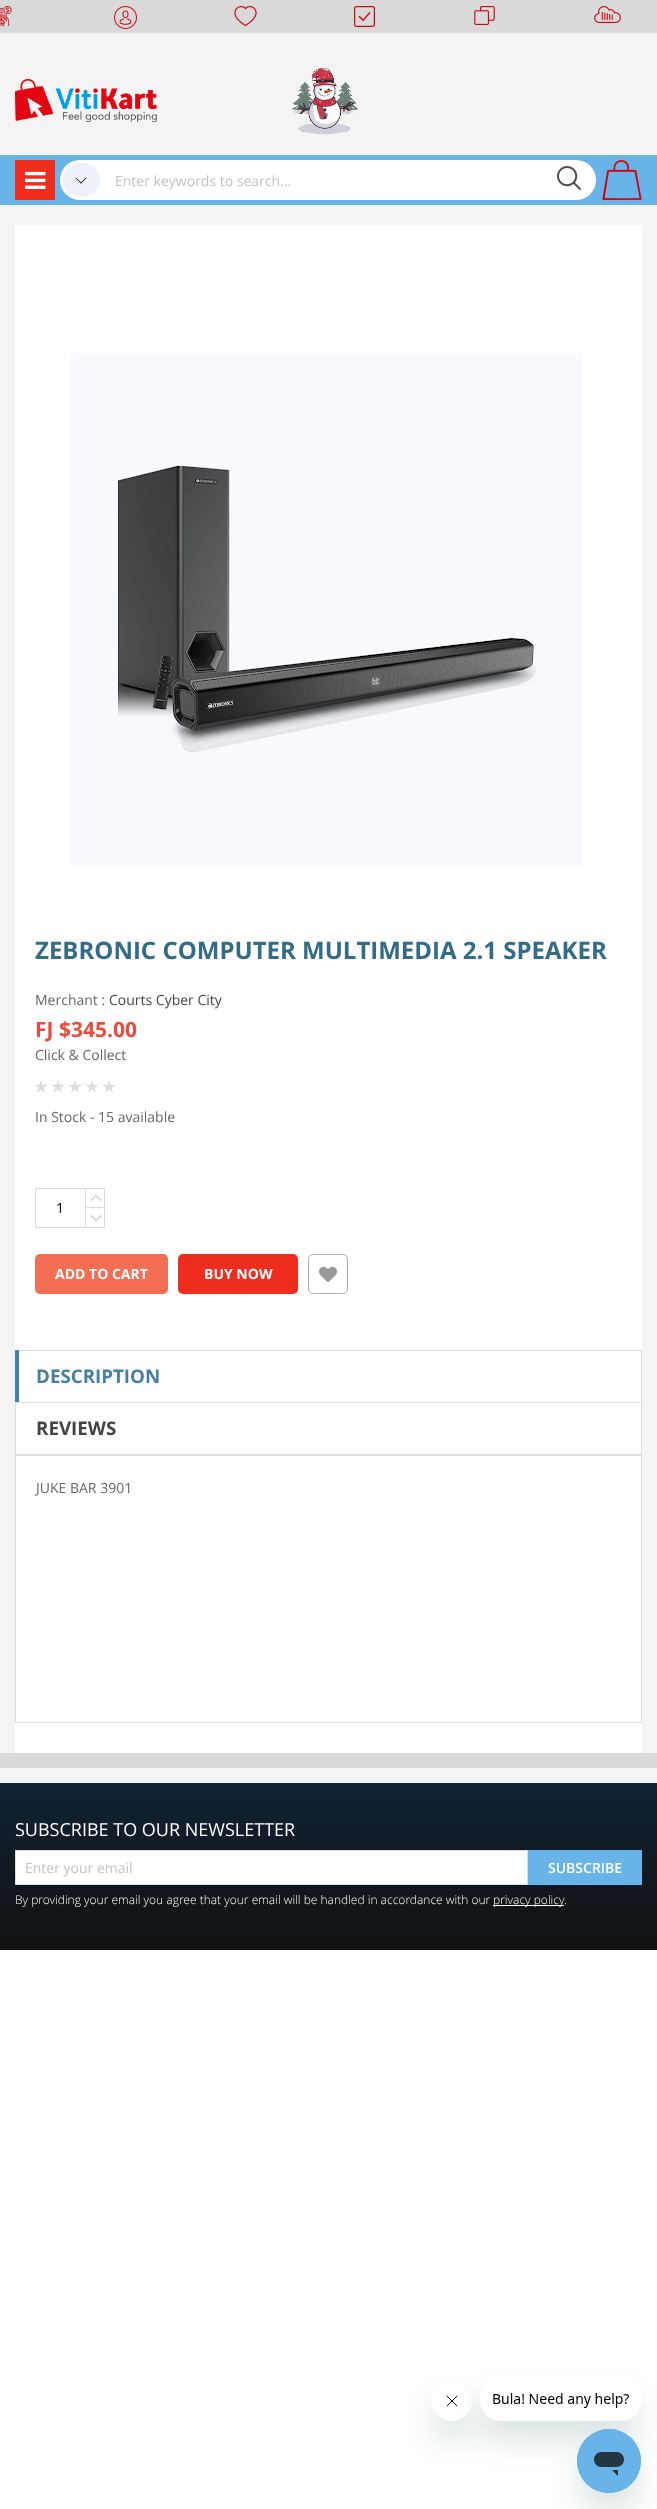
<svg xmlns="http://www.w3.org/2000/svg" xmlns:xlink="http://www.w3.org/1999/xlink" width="657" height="2509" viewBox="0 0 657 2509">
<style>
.cls-1{font:14px Open Sans;fill:#c2c2c2}
.cls-2{font:bold 24px Open Sans;fill:#336c87}
.cls-3{font:14px Open Sans;fill:#666666}
.cls-4{font:14px Open Sans;fill:#444444}
.cls-5{font:bold 21px Open Sans;fill:#e74c3c}
.cls-6{font:14px Open Sans;fill:#000000}
.cls-7{font:bold 14px Open Sans;fill:#ffffff}
.cls-8{font:bold 18.75px Open Sans;fill:#4381a4}
.cls-9{font:bold 18.75px Open Sans;fill:#444444}
.cls-10{font:18px Open Sans;fill:#ffffff}
.cls-11{font:600 14px Open Sans;fill:#ffffff}
.cls-12{font:300 12px Open Sans;fill:#ffffff}
</style>
<defs>
<linearGradient id="g1" gradientUnits="userSpaceOnUse" x1="329" y1="1783" x2="329" y2="1950"><stop offset="0" stop-color="#112233"/><stop offset="1" stop-color="#111111"/></linearGradient>
<clipPath id="clip1"><path d="M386 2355H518V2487H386ZM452 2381C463 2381 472 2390 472 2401C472 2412 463 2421 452 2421C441 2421 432 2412 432 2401C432 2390 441 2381 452 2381Z" clip-rule="evenodd"/></clipPath>
<clipPath id="clip2"><path d="M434 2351H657V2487H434ZM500 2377H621C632 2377 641 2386 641 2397V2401C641 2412 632 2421 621 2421H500C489 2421 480 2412 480 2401V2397C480 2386 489 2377 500 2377Z" clip-rule="evenodd"/></clipPath>
</defs>
<rect width="100%" height="100%" fill="#ffffff"/>
<rect fill="#d9d9d9" x="0" y="0" width="657" height="1768"/>
<rect fill="#eeeeee" x="0" y="33" width="657" height="1"/>
<image xlink:href="image0.png" x="0" y="6" width="12" height="20"/>
<image xlink:href="image1.png" x="114" y="6" width="23" height="23"/>
<image xlink:href="image2.png" x="234" y="6" width="23" height="20"/>
<image xlink:href="image3.png" x="354" y="6" width="21" height="21"/>
<image xlink:href="image4.png" x="474" y="6" width="21" height="19"/>
<image xlink:href="image5.png" x="594" y="6" width="27" height="17"/>
<rect fill="#68b3e7" x="0" y="155" width="657" height="50"/>
<rect fill="#ef2d1e" x="15" y="160" width="40" height="40"/>
<image xlink:href="image6.png" x="25" y="171" width="21" height="18"/>
<rect fill="#f4f4f4" x="0" y="34" width="657" height="121"/>
<image xlink:href="image7.png" x="15" y="79" width="142" height="43"/>
<image xlink:href="image8.png" x="292" y="68" width="66" height="66"/>
<rect fill="#ffffff" x="60" y="160" width="536" height="40" rx="20"/>
<rect fill="#edf2fa" x="63" y="163" width="37" height="34" rx="17"/>
<path fill="#000000" d="M86 177.5L86.5 178L81 183.5L80.5 183Z"/>
<path fill="#000000" d="M76 177.5L81.5 183L81 183.5L75.5 178Z"/>
<image xlink:href="image9.png" x="557" y="166" width="24" height="24"/>
<image xlink:href="image10.png" x="602" y="160" width="40" height="40"/>
<rect fill="#f4f4f4" x="0" y="205" width="657" height="1548"/>
<rect fill="#ffffff" x="15" y="225" width="627" height="1528"/>
<image xlink:href="image11.png" x="71" y="353" width="512" height="512"/>
<image xlink:href="image12.png" x="35" y="1080" width="80" height="13"/>
<rect fill="none" stroke="#dadada" x="35.5" y="1188.5" width="69" height="39"/>
<rect fill="#dadada" x="85" y="1207" width="20" height="1"/>
<rect fill="#dadada" x="85" y="1188" width="1" height="40"/>
<image xlink:href="image13.png" x="90" y="1195" width="12" height="6"/>
<image xlink:href="image14.png" x="90" y="1215" width="12" height="6"/>
<rect fill="#f36e53" x="35" y="1254" width="133" height="40" rx="5"/>
<rect fill="#ef2d1e" x="178" y="1254" width="120" height="40" rx="5"/>
<rect fill="none" stroke="#adadad" x="308.5" y="1254.5" width="39" height="39" rx="4.5"/>
<image xlink:href="image15.png" x="319" y="1266" width="18" height="17"/>
<rect fill="#dddddd" x="15" y="1350" width="627" height="1"/>
<rect fill="#dddddd" x="641" y="1350" width="1" height="52"/>
<rect fill="#4381a4" x="15" y="1350" width="4" height="53"/>
<rect fill="none" stroke="#dddddd" x="15.5" y="1402.5" width="626" height="52"/>
<rect fill="none" stroke="#dddddd" x="15.5" y="1455.5" width="626" height="267"/>
<rect fill="#f4f4f4" x="0" y="1768" width="657" height="15"/>
<rect fill="url(#g1)" x="0" y="1783" width="657" height="167"/>
<rect fill="#ffffff" stroke="#dbdbdb" x="15.5" y="1850.5" width="512" height="34"/>
<rect fill="#68b3e7" x="528" y="1850" width="114" height="35"/>
<rect fill="#ffffff" x="493" y="1905" width="71" height="1"/>
<g clip-path="url(#clip1)">
<rect fill="#17494d" fill-opacity="0.15" filter="blur(15px)" x="432" y="2401" width="40" height="40" rx="20"/>
</g>
<image xlink:href="image17.png" x="446" y="2395" width="12" height="12"/>
<g clip-path="url(#clip2)">
<rect fill="#17494d" fill-opacity="0.15" filter="blur(15px)" x="480" y="2397" width="161" height="44" rx="20"/>
</g>
<image xlink:href="image16.png" x="481" y="2393" width="154" height="28"/>
<rect fill="#17494d" fill-opacity="0.15" filter="blur(15px)" x="577" y="2449" width="64" height="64" rx="32"/>
<image xlink:href="image18.png" x="577" y="2429" width="64" height="64"/>
<text class="cls-1" x="115" y="186">Enter keywords to search...</text>
<text class="cls-2" x="35" y="959">ZEBRONIC COMPUTER MULTIMEDIA 2.1 SPEAKER</text>
<text class="cls-3" x="35" y="1005">Merchant :</text>
<text class="cls-4" x="109" y="1005">Courts Cyber City</text>
<text class="cls-5" x="35" y="1037">FJ $345.00</text>
<text class="cls-3" x="35" y="1060">Click &amp; Collect</text>
<text class="cls-3" x="35" y="1122">In Stock - 15 available</text>
<text class="cls-6" x="56" y="1213">1</text>
<text class="cls-7" x="55" y="1279">ADD TO CART</text>
<text class="cls-7" x="204" y="1279">BUY NOW</text>
<text class="cls-8" x="36" y="1383">DESCRIPTION</text>
<text class="cls-9" x="36" y="1435">REVIEWS</text>
<text class="cls-3" x="36" y="1493">JUKE BAR 3901</text>
<text class="cls-10" x="15" y="1836">SUBSCRIBE TO OUR NEWSLETTER</text>
<text class="cls-1" x="25" y="1873">Enter your email</text>
<text class="cls-11" x="548" y="1873">SUBSCRIBE</text>
<text class="cls-12" x="15" y="1904">By providing your email you agree that your email will be handled in accordance with our</text>
<text class="cls-12" x="493" y="1904">privacy policy</text>
<text class="cls-12" x="564" y="1904">.</text>
</svg>
